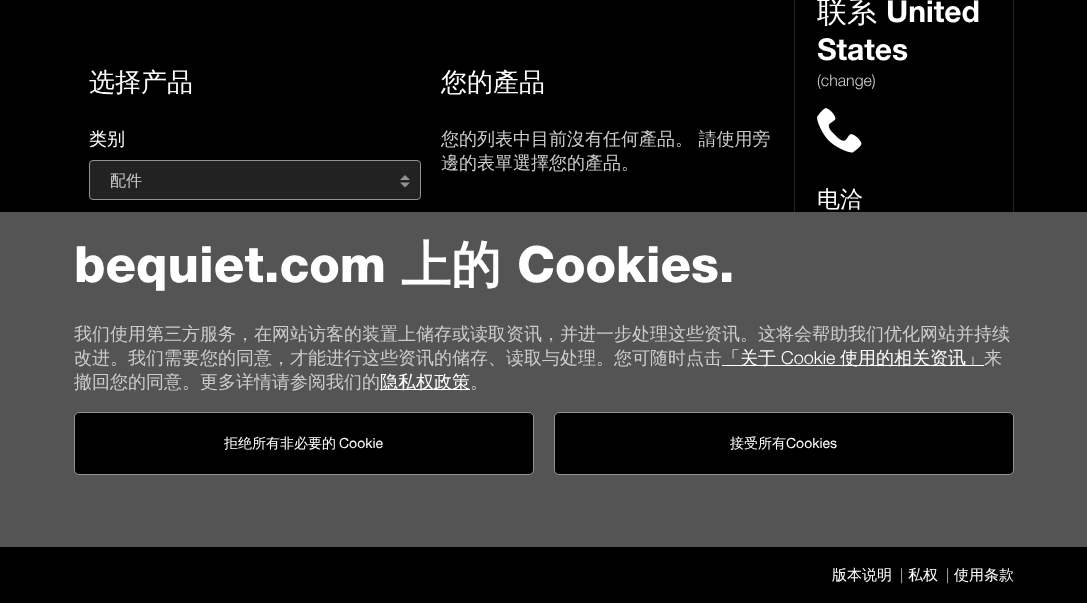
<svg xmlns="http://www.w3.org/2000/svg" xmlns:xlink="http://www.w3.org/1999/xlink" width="1087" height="603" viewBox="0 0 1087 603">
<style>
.cls-1{font:500 26px WenQuanYi Zen Hei;fill:#ffffff}
.cls-2{font:500 18px WenQuanYi Zen Hei;fill:#ffffff}
.cls-3{font:500 16px WenQuanYi Zen Hei;fill:#cccccc}
.cls-4{font:500 18px WenQuanYi Zen Hei;fill:#cccccc}
.cls-5{font:500 30px WenQuanYi Zen Hei;fill:#ffffff}
.cls-6{font:30px Helvetica Neue;fill:#ffffff}
.cls-7{font:16px 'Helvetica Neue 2';fill:#cccccc}
.cls-8{font:500 23px WenQuanYi Zen Hei;fill:#ffffff}
.cls-9{font:50px 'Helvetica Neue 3';fill:#ffffff}
.cls-10{font:bold 50px WenQuanYi Zen Hei;fill:#ffffff}
.cls-11{font:18px 'Helvetica Neue 2';fill:#ffffff}
.cls-12{font:500 14px WenQuanYi Zen Hei;fill:#ffffff}
.cls-13{font:14px 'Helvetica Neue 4';fill:#ffffff}
.cls-14{font:500 15px WenQuanYi Zen Hei;fill:#ffffff}
.cls-15{font:15px 'Helvetica Neue 2';fill:#cccccc}
</style>
<rect width="100%" height="100%" fill="#000000"/>
<rect fill="#222222" stroke="#929395" x="89.5" y="160.5" width="331" height="39" rx="3.5"/>
<image xlink:href="image0.png" x="400" y="175" width="10" height="12"/>
<rect fill="none" stroke="#222222" x="794.5" y="-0.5" width="219" height="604"/>
<image xlink:href="image1.png" x="817" y="108" width="45" height="45"/>
<rect fill="#000000" x="794" y="547" width="220" height="56"/>
<rect fill="#545454" x="0" y="212" width="1087" height="335"/>
<rect fill="#ffffff" x="722" y="365" width="262" height="1"/>
<rect fill="#ffffff" x="380" y="389" width="90" height="1"/>
<rect fill="#000000" stroke="#929395" x="74.5" y="412.5" width="459" height="62" rx="4.5"/>
<rect fill="#000000" stroke="#929395" x="554.5" y="412.5" width="459" height="62" rx="4.5"/>
<text class="cls-1" x="89" y="91">选择产品</text>
<text class="cls-2" x="89" y="145">类别</text>
<text class="cls-3" x="110" y="186">配件</text>
<text class="cls-1" x="441" y="91">您的產品</text>
<text class="cls-4"><tspan x="441" y="145">您的列表中目前沒有任何產品。 請使用旁</tspan><tspan x="441" y="169">邊的表單選擇您的產品。</tspan></text>
<text class="cls-5" x="817" y="22">联系</text>
<text class="cls-6" x="886" y="22">United</text>
<text class="cls-6" x="817" y="60">States</text>
<text class="cls-7" x="817" y="86">(change)</text>
<text class="cls-8" x="817" y="207">电洽</text>
<text class="cls-9" x="74" y="282">bequiet.com</text>
<text class="cls-10" x="401" y="282">上的</text>
<text class="cls-9" x="517" y="282">Cookies.</text>
<text class="cls-4"><tspan x="74" y="340">我们使用第三方服务，在网站访客的装置上储存或读取资讯，并进一步处理这些资讯。这将会帮助我们优化网站并持续</tspan><tspan x="74" y="364">改进。我们需要您的同意，才能进行这些资讯的储存、读取与处理。您可随时点击</tspan></text>
<text class="cls-2" x="722" y="364">「关于</text>
<text class="cls-11" x="781" y="364">Cookie</text>
<text class="cls-2" x="840" y="364">使用的相关资讯」</text>
<text class="cls-4" x="984" y="364">来</text>
<text class="cls-4" x="74" y="388">撤回您的同意。更多详情请参阅我们的</text>
<text class="cls-2" x="380" y="388">隐私权政策</text>
<text class="cls-4" x="470" y="388">。</text>
<text class="cls-12" x="224" y="448">拒绝所有非必要的</text>
<text class="cls-13" x="339" y="448">Cookie</text>
<text class="cls-12" x="730" y="448">接受所有</text>
<text class="cls-13" x="786" y="448">Cookies</text>
<text class="cls-14" x="832" y="580">版本说明</text>
<text class="cls-15" x="900" y="580">|</text>
<text class="cls-14" x="908" y="580">私权</text>
<text class="cls-15" x="946" y="580">|</text>
<text class="cls-14" x="954" y="580">使用条款</text>
</svg>
